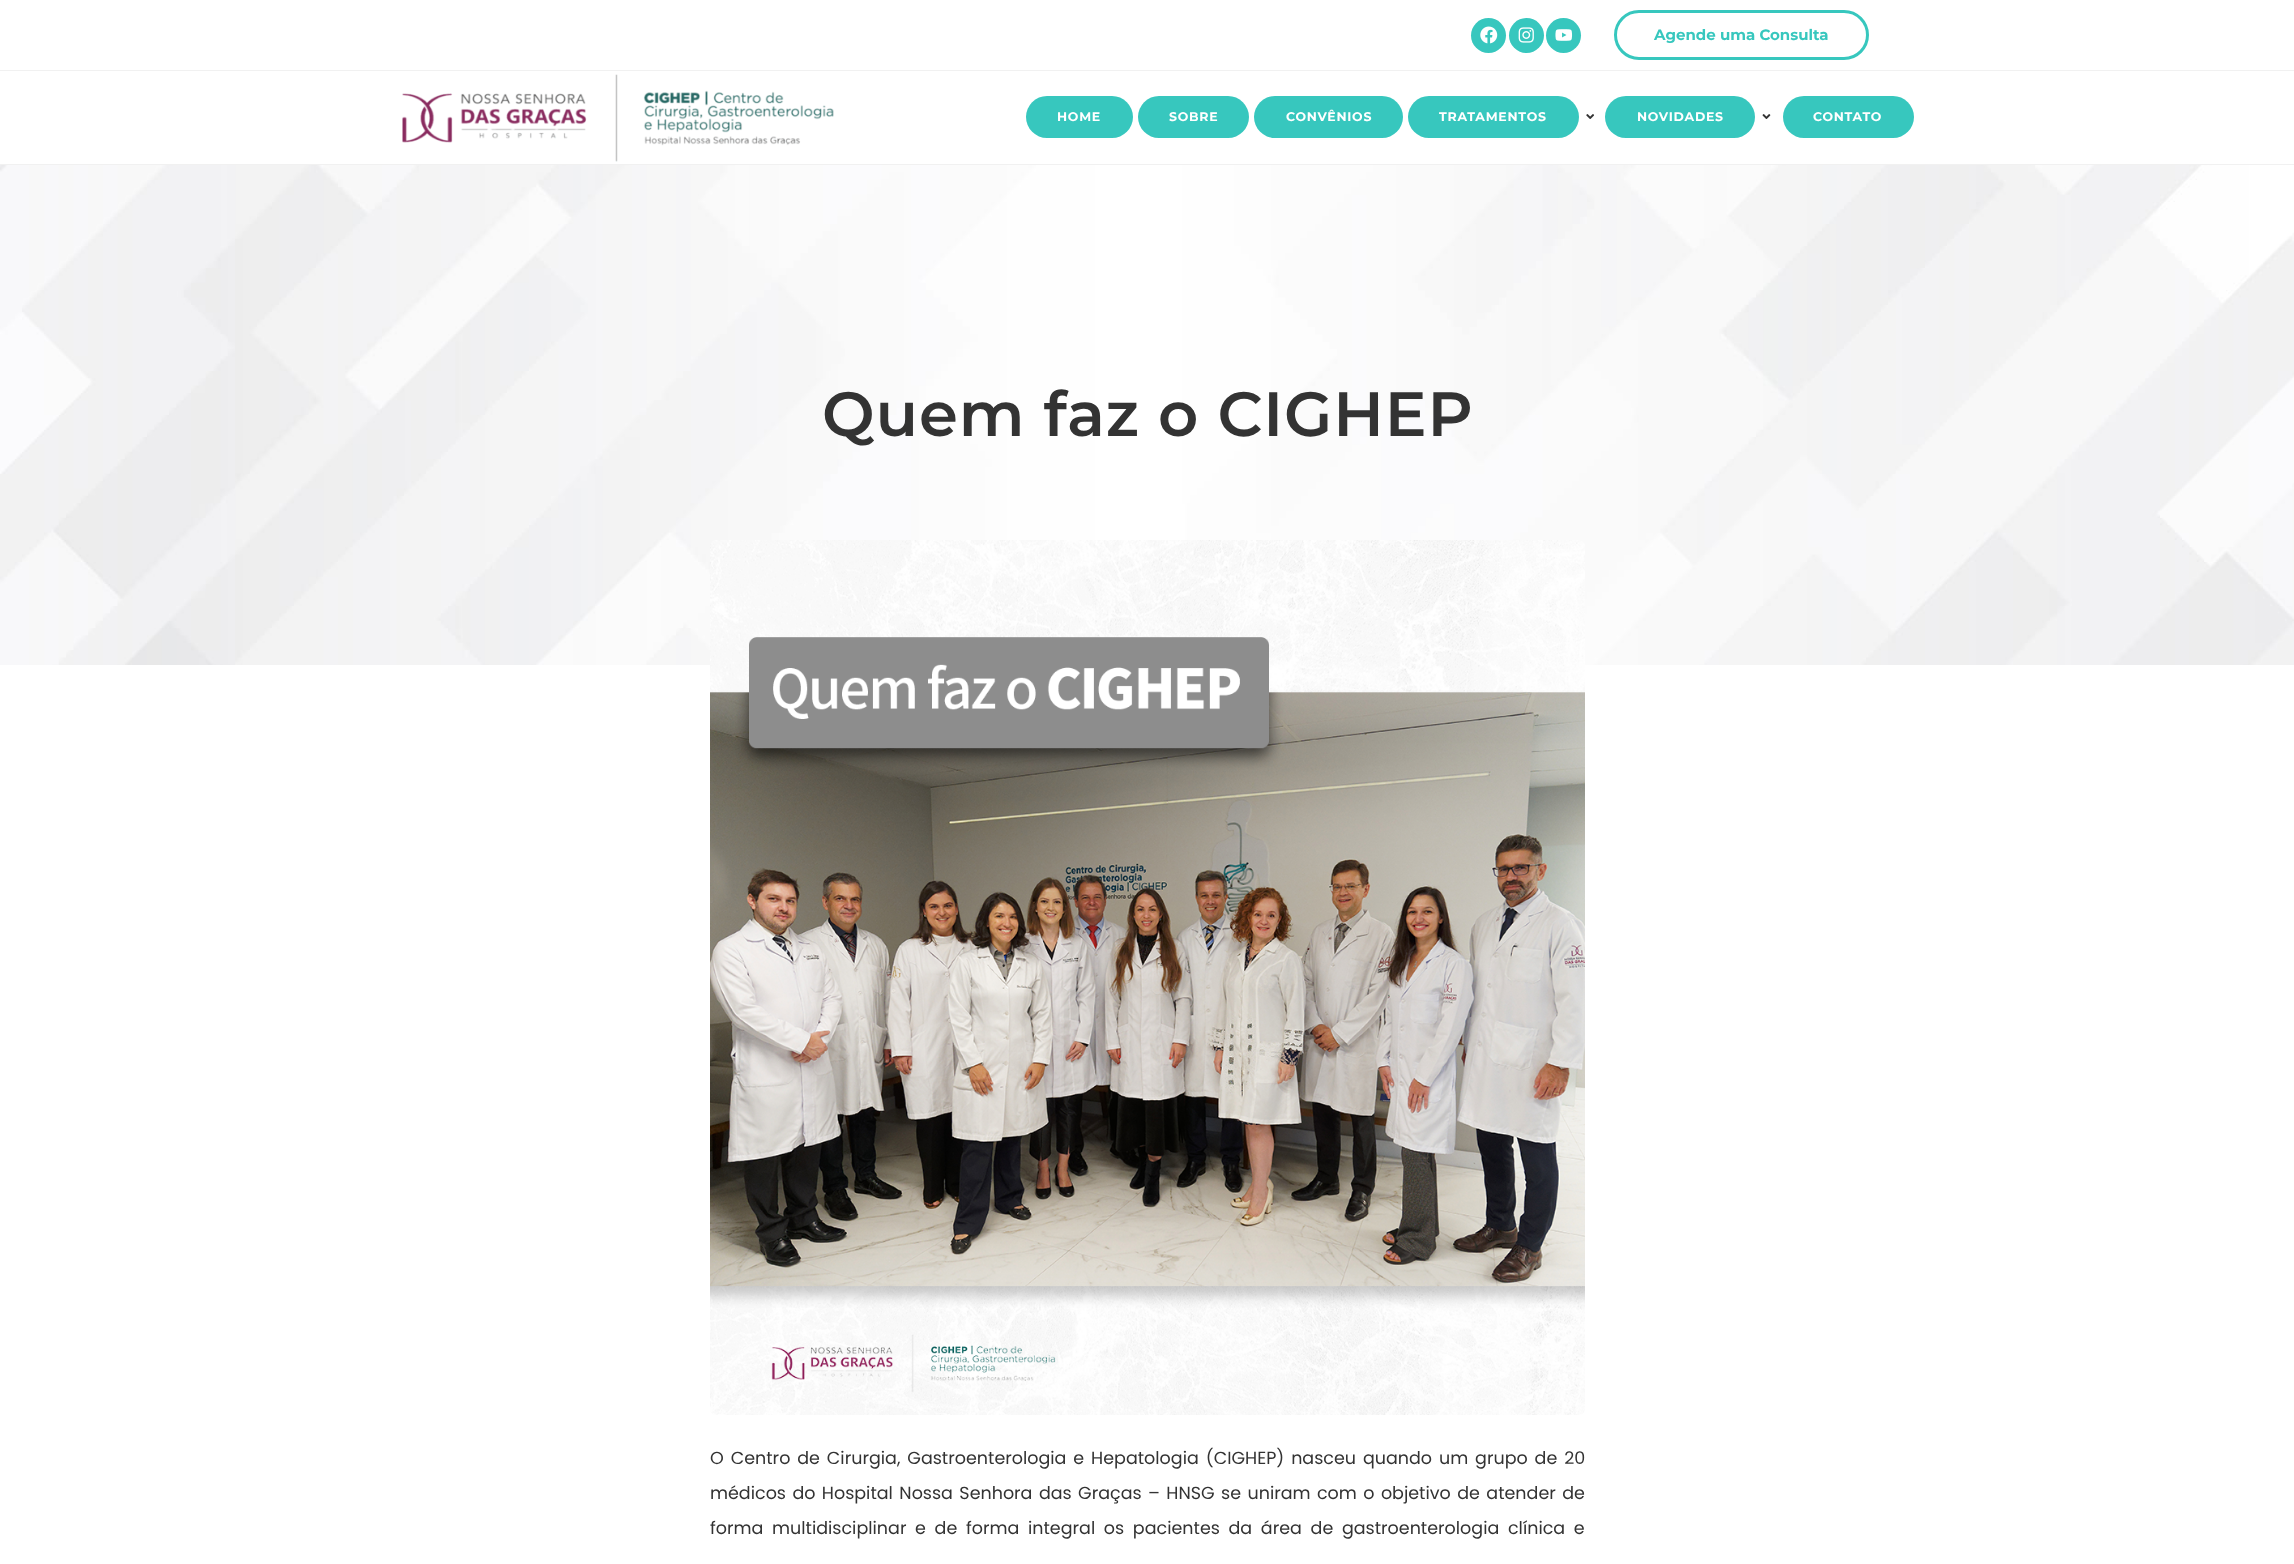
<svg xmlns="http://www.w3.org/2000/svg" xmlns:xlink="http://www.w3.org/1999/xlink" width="2294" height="1564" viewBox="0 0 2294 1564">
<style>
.cls-1{font:bold 15px Montserrat;fill:#37c7be}
.cls-2{font:bold 12.5px Montserrat;letter-spacing:0.75px;fill:#ffffff}
.cls-3{font:600 62.5px Montserrat;letter-spacing:0.9px;fill:#333333}
.cls-4{font:17.5px Poppins;fill:#333333}
</style>
<rect width="100%" height="100%" fill="#ffffff"/>
<rect fill="#f1f1f1" x="0" y="70" width="2294" height="1"/>
<circle fill="#37c7be" cx="1488.5" cy="35.5" r="17.5"/>
<image xlink:href="image0.png" x="1480" y="26" width="18" height="18"/>
<circle fill="#37c7be" cx="1526.5" cy="35.5" r="17.5"/>
<image xlink:href="image1.png" x="1518" y="27" width="16" height="16"/>
<circle fill="#37c7be" cx="1563.5" cy="35.5" r="17.5"/>
<image xlink:href="image2.png" x="1555" y="29" width="18" height="12"/>
<rect fill="none" stroke="#37c7be" stroke-width="3" x="1615.5" y="11.5" width="252" height="47" rx="23.5"/>
<rect fill="#f1f1f1" x="0" y="164" width="2294" height="1"/>
<image xlink:href="image3.png" x="402" y="74" width="432" height="88"/>
<rect fill="#37c7be" x="1026" y="96" width="107" height="42" rx="21"/>
<rect fill="#37c7be" x="1138" y="96" width="111" height="42" rx="21"/>
<rect fill="#37c7be" x="1254" y="96" width="149" height="42" rx="21"/>
<rect fill="#37c7be" x="1408" y="96" width="171" height="42" rx="21"/>
<image xlink:href="image4.png" x="1586" y="114" width="8" height="5"/>
<rect fill="#37c7be" x="1605" y="96" width="150" height="42" rx="21"/>
<image xlink:href="image5.png" x="1762" y="114" width="9" height="5"/>
<rect fill="#37c7be" x="1783" y="96" width="131" height="42" rx="21"/>
<image xlink:href="image6.png" x="0" y="165" width="2294" height="500"/>
<image xlink:href="image7.png" x="710" y="540" width="875" height="875"/>
<text class="cls-1" x="1654" y="40">Agende uma Consulta</text>
<text class="cls-2" x="1057" y="121">HOME</text>
<text class="cls-2" x="1169" y="121">SOBRE</text>
<text class="cls-2" x="1286" y="121">CONVÊNIOS</text>
<text class="cls-2" x="1439" y="121">TRATAMENTOS</text>
<text class="cls-2" x="1637" y="121">NOVIDADES</text>
<text class="cls-2" x="1813" y="121">CONTATO</text>
<text class="cls-3" x="822" y="436">Quem faz o CIGHEP</text>
<text class="cls-4" x="710" y="1464" word-spacing="2.25">O Centro de Cirurgia, Gastroenterologia e Hepatologia (CIGHEP) nasceu quando um grupo de 20</text>
<text class="cls-4" x="710" y="1499" word-spacing="1.75">médicos do Hospital Nossa Senhora das Graças – HNSG se uniram com o objetivo de atender de</text>
<text class="cls-4" x="710" y="1534" word-spacing="4">forma multidisciplinar e de forma integral os pacientes da área de gastroenterologia clínica e</text>
</svg>
